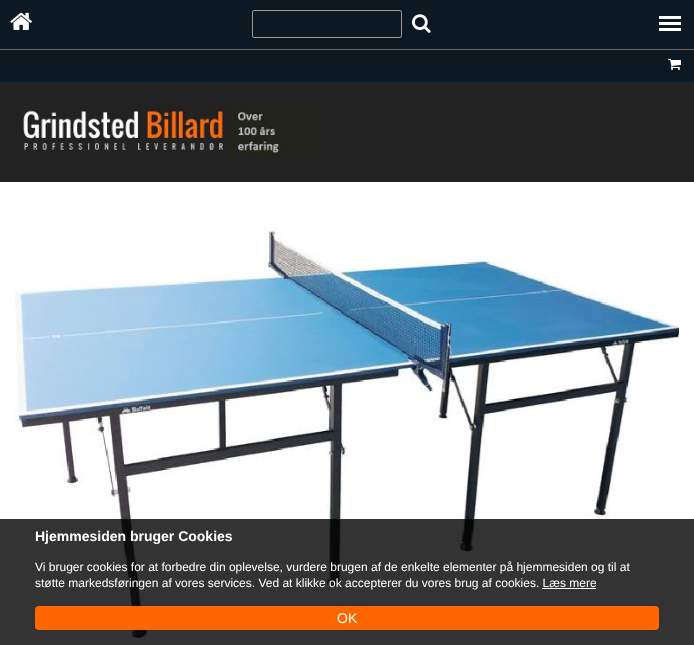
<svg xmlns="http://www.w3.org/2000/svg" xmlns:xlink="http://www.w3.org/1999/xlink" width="694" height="645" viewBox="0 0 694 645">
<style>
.cls-1{font:bold 14px Liberation Sans;fill:#ffffff}
.cls-2{font:12px Liberation Sans;fill:#ffffff}
.cls-3{font:14px Liberation Sans;fill:#ffffff}
</style>
<rect width="100%" height="100%" fill="#ffffff"/>
<rect fill="#0c1923" x="0" y="0" width="694" height="49"/>
<image xlink:href="image0.png" x="10" y="12" width="22" height="18"/>
<rect fill="#ffffff" x="659" y="16" width="22" height="3"/>
<rect fill="#ffffff" x="659" y="22" width="22" height="3"/>
<rect fill="#ffffff" x="659" y="28" width="22" height="3"/>
<rect fill="none" stroke="#98989a" x="252.5" y="10.5" width="149" height="27" rx="1.5"/>
<image xlink:href="image1.png" x="412" y="14" width="19" height="19"/>
<rect fill="#222222" x="0" y="82" width="694" height="100"/>
<image xlink:href="image2.png" x="23" y="106" width="298" height="50"/>
<image xlink:href="image3.png" x="15" y="227" width="664" height="415"/>
<rect fill="#0c1923" x="0" y="50" width="694" height="32"/>
<rect fill="#666666" x="0" y="49" width="694" height="1"/>
<image xlink:href="image4.png" x="668" y="59" width="13" height="11"/>
<rect fill="#000000" fill-opacity="0.8" x="0" y="519" width="694" height="126"/>
<rect fill="#ffffff" x="542" y="588" width="54" height="1"/>
<rect fill="#ff6600" x="35" y="606" width="624" height="24" rx="4"/>
<text class="cls-1" x="35" y="541">Hjemmesiden bruger Cookies</text>
<text class="cls-2"><tspan x="35" y="571">Vi bruger cookies for at forbedre din oplevelse, vurdere brugen af de enkelte elementer på hjemmesiden og til at</tspan><tspan x="35" y="587">støtte markedsføringen af vores services. Ved at klikke ok accepterer du vores brug af cookies. Læs mere</tspan></text>
<text class="cls-3" x="337" y="623">OK</text>
</svg>
